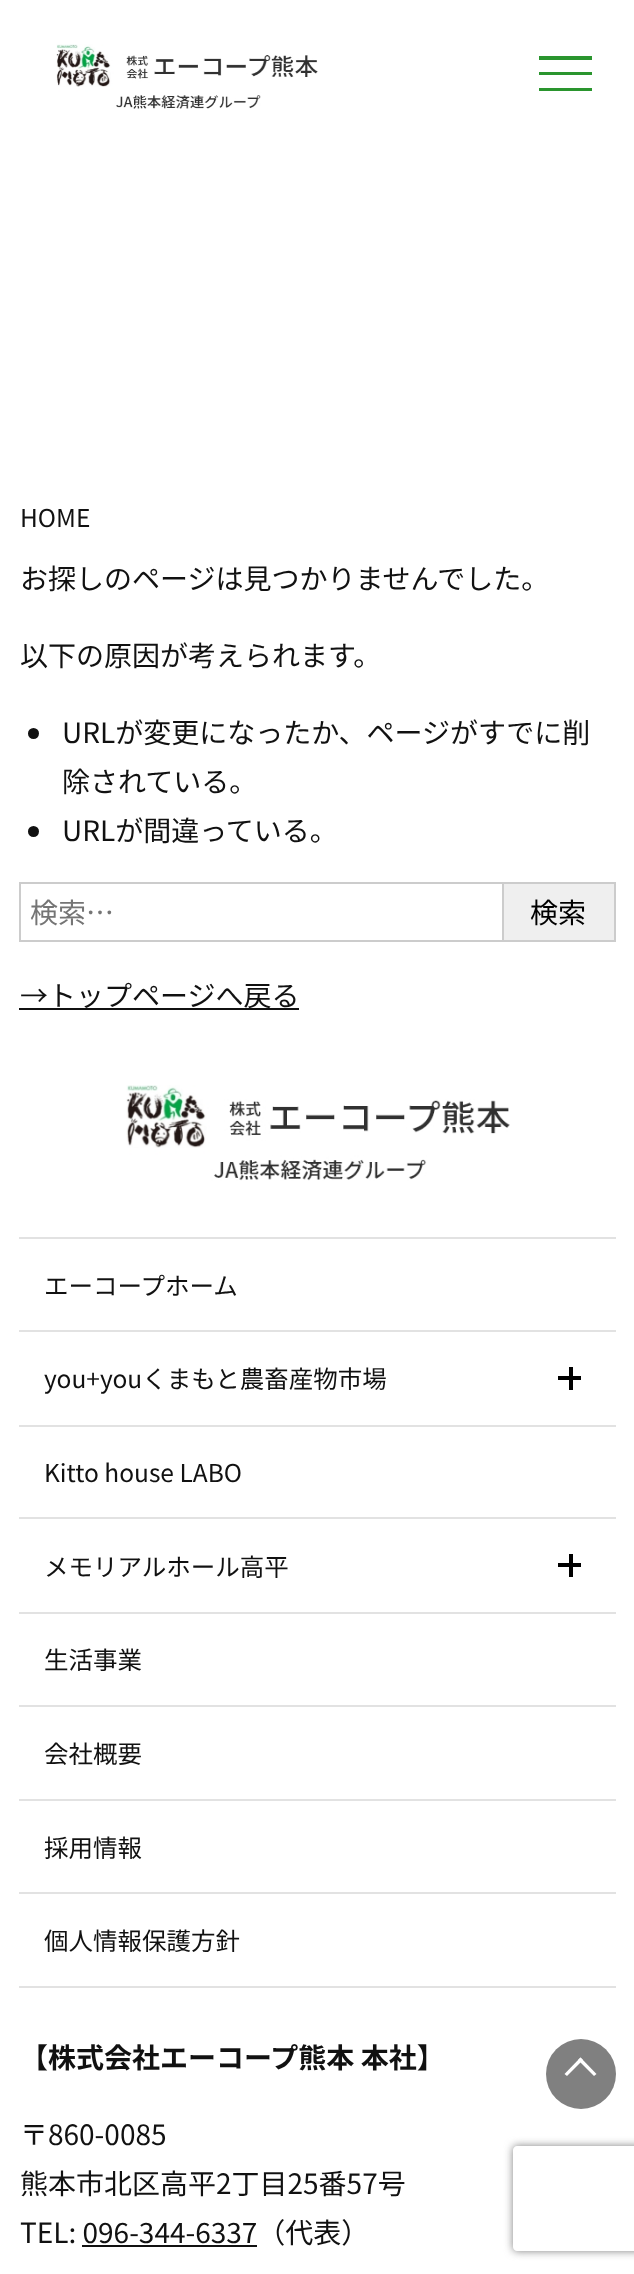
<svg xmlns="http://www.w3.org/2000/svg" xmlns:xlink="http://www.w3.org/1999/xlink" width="634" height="2274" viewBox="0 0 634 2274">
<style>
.cls-1{font:24.5px Noto Sans JP;fill:#111111}
.cls-2{font:28px Noto Sans JP;fill:#111111}
.cls-3{font:28px Noto Sans JP;fill:#757575}
.cls-4{font:28px Noto Sans JP;fill:#000000}
.cls-5{font:bold 28px Noto Sans JP;fill:#111111}
</style>
<defs>
<clipPath id="clip1"><path d="M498 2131H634V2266H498ZM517 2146H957C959 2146 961 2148 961 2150V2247C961 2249 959 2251 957 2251H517C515 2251 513 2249 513 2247V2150C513 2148 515 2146 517 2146Z" clip-rule="evenodd"/></clipPath>
</defs>
<rect width="100%" height="100%" fill="#ffffff"/>
<image xlink:href="image0.png" x="56" y="44" width="262" height="65"/>
<rect fill="#2a952e" x="539" y="56" width="53" height="4"/>
<rect fill="#2a952e" x="539" y="88" width="53" height="3"/>
<rect fill="#2a952e" x="539" y="72" width="53" height="3"/>
<circle fill="#111111" cx="33.5" cy="733.5" r="5.5"/>
<circle fill="#111111" cx="33.5" cy="831.5" r="5.5"/>
<rect fill="none" stroke="#cccccc" stroke-width="2" x="20" y="883" width="483" height="58"/>
<rect fill="#efefef" x="504" y="884" width="110" height="56"/>
<rect fill="#cccccc" x="504" y="882" width="112" height="2"/>
<rect fill="#cccccc" x="614" y="882" width="2" height="60"/>
<rect fill="#cccccc" x="504" y="940" width="112" height="2"/>
<rect fill="#111111" x="19" y="1008" width="280" height="2"/>
<image xlink:href="image1.png" x="126" y="1085" width="384" height="96"/>
<rect fill="#e2e2e2" x="19" y="1237" width="597" height="2"/>
<rect fill="#e2e2e2" x="19" y="1330" width="597" height="2"/>
<rect fill="#e2e2e2" x="19" y="1425" width="597" height="2"/>
<rect fill="#000000" x="569" y="1367" width="4" height="23"/>
<rect fill="#000000" x="558" y="1376" width="23" height="4"/>
<rect fill="#e2e2e2" x="19" y="1517" width="597" height="2"/>
<rect fill="#e2e2e2" x="19" y="1612" width="597" height="2"/>
<rect fill="#000000" x="569" y="1554" width="4" height="23"/>
<rect fill="#000000" x="558" y="1563" width="23" height="4"/>
<rect fill="#e2e2e2" x="19" y="1705" width="597" height="2"/>
<rect fill="#e2e2e2" x="19" y="1799" width="597" height="2"/>
<rect fill="#e2e2e2" x="19" y="1892" width="597" height="2"/>
<rect fill="#e2e2e2" x="19" y="1986" width="597" height="2"/>
<rect fill="#111111" x="82" y="2245" width="175" height="2"/>
<circle fill="#808080" cx="581" cy="2074" r="35"/>
<path fill="#ffffff" d="M564.5 2074L580.5 2057.5L583 2060L567 2076Z"/>
<path fill="#ffffff" d="M578 2060L580.5 2057.5L596.5 2074L594 2076Z"/>
<g clip-path="url(#clip1)">
<rect fill="#808080" filter="blur(4.5px)" x="513" y="2146" width="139" height="105" rx="4"/>
</g>
<text class="cls-1" x="20" y="527">HOME</text>
<text class="cls-2" x="20" y="589">お探しのページは見つかりませんでした。</text>
<text class="cls-2" x="20" y="666">以下の原因が考えられます。</text>
<text class="cls-2"><tspan x="62" y="743">URLが変更になったか、ページがすでに削</tspan><tspan x="62" y="792">除されている。</tspan><tspan x="62" y="841">URLが間違っている。</tspan></text>
<text class="cls-3" x="30" y="923">検索…</text>
<text class="cls-4" x="530" y="923">検索</text>
<text class="cls-2" x="20" y="1006">→トップページへ戻る</text>
<text class="cls-1" x="44" y="1295">エーコープホーム</text>
<text class="cls-1" x="44" y="1388">you+youくまもと農畜産物市場</text>
<text class="cls-1" x="44" y="1482">Kitto house LABO</text>
<text class="cls-1" x="44" y="1576">メモリアルホール高平</text>
<text class="cls-1" x="44" y="1669">生活事業</text>
<text class="cls-1" x="44" y="1763">会社概要</text>
<text class="cls-1" x="44" y="1857">採用情報</text>
<text class="cls-1" x="44" y="1950">個人情報保護方針</text>
<text class="cls-5" x="20" y="2068">【株式会社エーコープ熊本 本社】</text>
<text class="cls-2"><tspan x="20" y="2145">〒860-0085</tspan><tspan x="20" y="2194">熊本市北区高平2丁目25番57号</tspan><tspan x="20" y="2243">TEL: 096-344-6337（代表）</tspan></text>
</svg>
